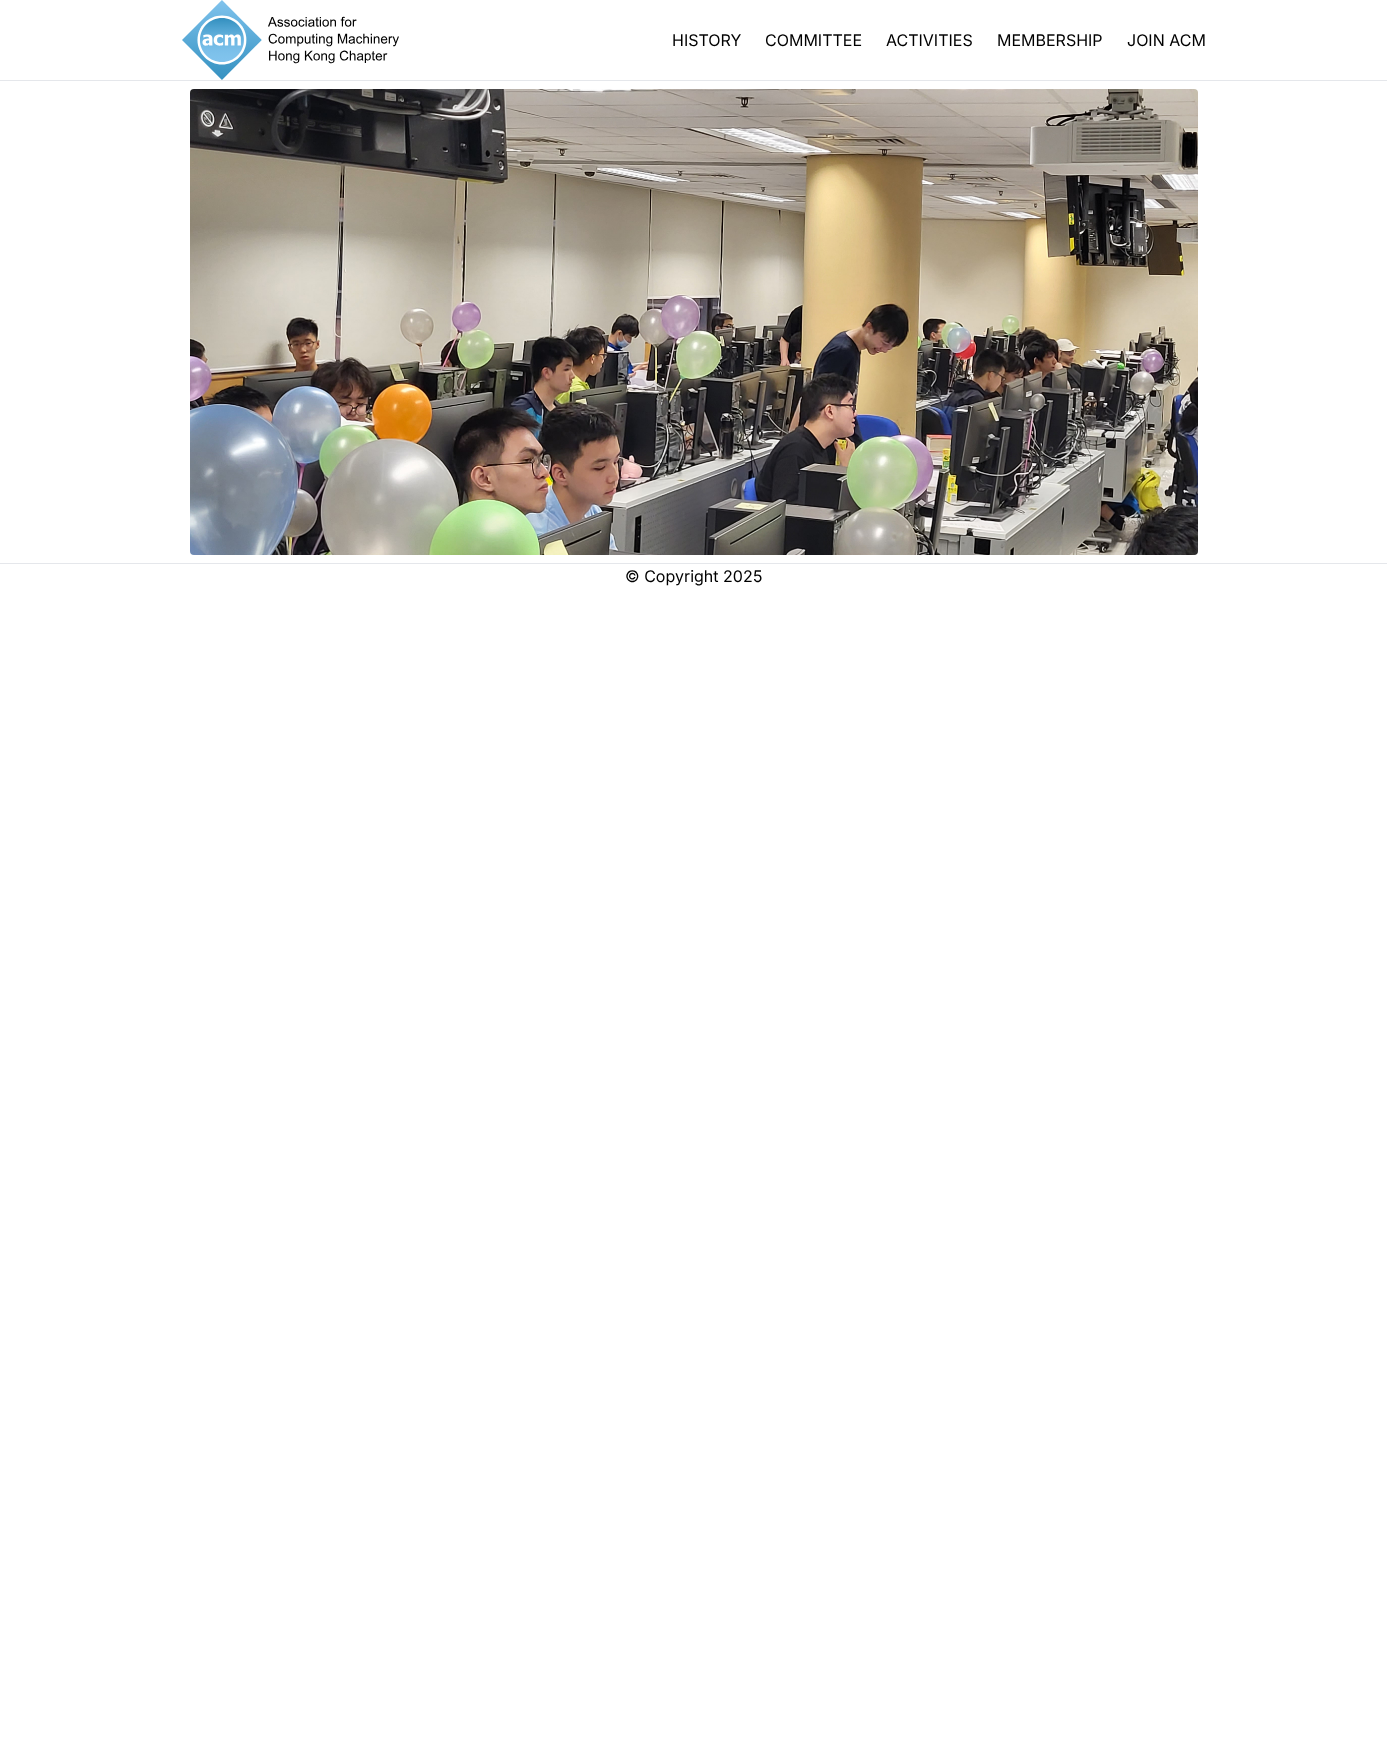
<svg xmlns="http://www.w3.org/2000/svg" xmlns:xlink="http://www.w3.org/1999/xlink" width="1387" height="1739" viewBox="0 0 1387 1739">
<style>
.cls-1{font:16px Inter;fill:#000000}
</style>
<rect width="100%" height="100%" fill="#ffffff"/>
<rect fill="#e5e7eb" x="0" y="80" width="1387" height="1"/>
<image xlink:href="image0.png" x="182" y="0" width="217" height="80"/>
<image xlink:href="image1.png" x="190" y="89" width="1008" height="466"/>
<rect fill="#e5e7eb" x="0" y="563" width="1387" height="1"/>
<text class="cls-1" x="672" y="46">HISTORY</text>
<text class="cls-1" x="765" y="46">COMMITTEE</text>
<text class="cls-1" x="886" y="46">ACTIVITIES</text>
<text class="cls-1" x="997" y="46">MEMBERSHIP</text>
<text class="cls-1" x="1127" y="46">JOIN ACM</text>
<text class="cls-1" x="625" y="582">© Copyright 2025</text>
</svg>
